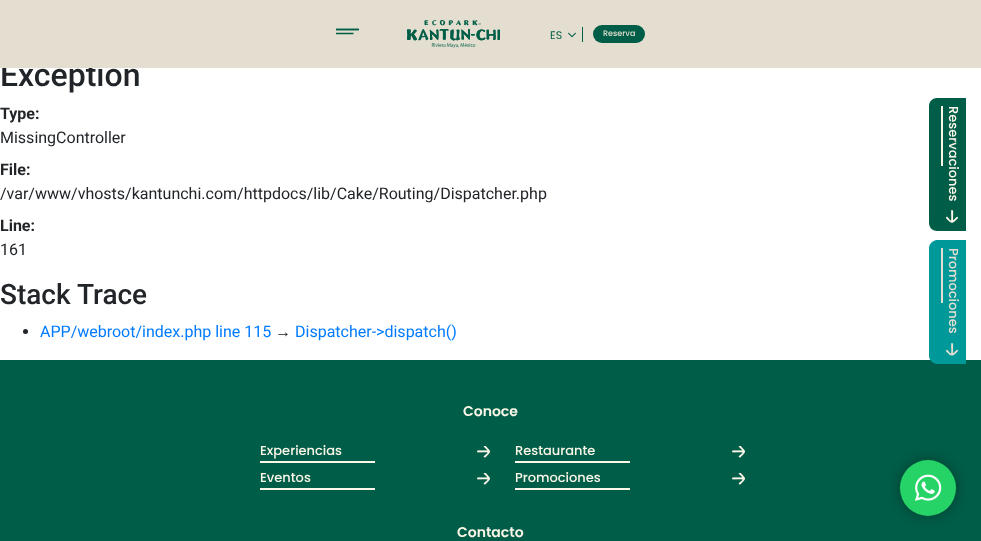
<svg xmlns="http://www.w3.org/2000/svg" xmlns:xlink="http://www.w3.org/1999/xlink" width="981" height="541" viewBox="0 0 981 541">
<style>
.cls-1{font:500 32px Roboto;fill:#212529}
.cls-2{font:11px Poppins;fill:#005d47}
.cls-3{font:500 8px Poppins;fill:#e3ded0}
.cls-4{font:bold 16px Roboto;fill:#212529}
.cls-5{font:16px Roboto;fill:#212529}
.cls-6{font:500 28px Roboto;fill:#212529}
.cls-7{font:16px Roboto;fill:#007bff}
.cls-8{font:16px Liberation Sans;fill:#212529}
.cls-9{font:500 13px Poppins;fill:#fbf7e9}
.cls-10{font:500 13px Poppins;fill:#e3ded0}
.cls-11{font:600 14px Poppins;fill:#fbf7e9}
</style>
<rect width="100%" height="100%" fill="#ffffff"/>
<circle fill="#212529" cx="25.5" cy="331.5" r="2.5"/>
<path fill="#005d47" d="M966 98V231H937C933 231 929 228 929 223V106C929 101 933 98 937 98Z"/>
<rect fill="#fbf7e9" x="941" y="106" width="2" height="60"/>
<image xlink:href="image2.png" x="946" y="210" width="12" height="13"/>
<rect fill="#005d47" x="0" y="360" width="981" height="181"/>
<path fill="#009999" d="M966 240V364H937C933 364 929 360 929 356V248C929 244 933 240 937 240Z"/>
<rect fill="#e3ded0" x="941" y="248" width="2" height="55"/>
<image xlink:href="image3.png" x="946" y="343" width="12" height="13"/>
<image xlink:href="image4.png" x="477" y="446" width="13" height="12"/>
<rect fill="#fbf7e9" x="260" y="461" width="115" height="2"/>
<image xlink:href="image4.png" x="732" y="446" width="13" height="12"/>
<rect fill="#fbf7e9" x="515" y="461" width="115" height="2"/>
<image xlink:href="image4.png" x="477" y="473" width="13" height="12"/>
<rect fill="#fbf7e9" x="260" y="488" width="115" height="2"/>
<image xlink:href="image4.png" x="732" y="473" width="13" height="12"/>
<rect fill="#fbf7e9" x="515" y="488" width="115" height="2"/>
<rect fill="#000000" fill-opacity="0.16" filter="blur(4px)" x="896" y="456" width="64" height="64" rx="32"/>
<circle fill="#25d366" cx="928" cy="488" r="28"/>
<image xlink:href="image5.png" x="915" y="474" width="27" height="27"/>
<text class="cls-1" x="0" y="86">Exception</text>
<rect fill="#e3ded0" x="0" y="0" width="981" height="68"/>
<rect fill="#005d47" x="582" y="27" width="1" height="15"/>
<image xlink:href="image1.png" x="568" y="32" width="8" height="6"/>
<text class="cls-2" x="550" y="39">ES</text>
<rect fill="#005d47" x="593" y="25" width="52" height="18" rx="9"/>
<text class="cls-3" x="603" y="36">Reserva</text>
<image xlink:href="image0.png" x="407" y="20" width="93" height="28"/>
<path fill="none" stroke="#005d47" stroke-width="1.5" d="M336 33.5H353.5"/>
<path fill="none" stroke="#005d47" stroke-width="1.9" d="M336 29.5H359"/>
<text class="cls-4" x="0" y="119">Type:</text>
<text class="cls-5" x="0" y="143">MissingController</text>
<text class="cls-4" x="0" y="175">File:</text>
<text class="cls-5" x="0" y="199">/var/www/vhosts/kantunchi.com/httpdocs/lib/Cake/Routing/Dispatcher.php</text>
<text class="cls-4" x="0" y="231">Line:</text>
<text class="cls-5" x="0" y="255">161</text>
<text class="cls-6" x="0" y="304">Stack Trace</text>
<text class="cls-7" x="40" y="337">APP/webroot/index.php line 115</text>
<text class="cls-7" x="295" y="337">Dispatcher-&gt;dispatch()</text>
<text class="cls-8" x="275" y="337">→</text>
<text class="cls-9" x="949" y="106" transform="rotate(90 949 106)">Reservaciones</text>
<text class="cls-10" x="949" y="248" transform="rotate(90 949 248)">Promociones</text>
<text class="cls-11" x="463" y="416">Conoce</text>
<text class="cls-9" x="260" y="455">Experiencias</text>
<text class="cls-9" x="515" y="455">Restaurante</text>
<text class="cls-9" x="260" y="482">Eventos</text>
<text class="cls-9" x="515" y="482">Promociones</text>
<text class="cls-11" x="457" y="537">Contacto</text>
</svg>
